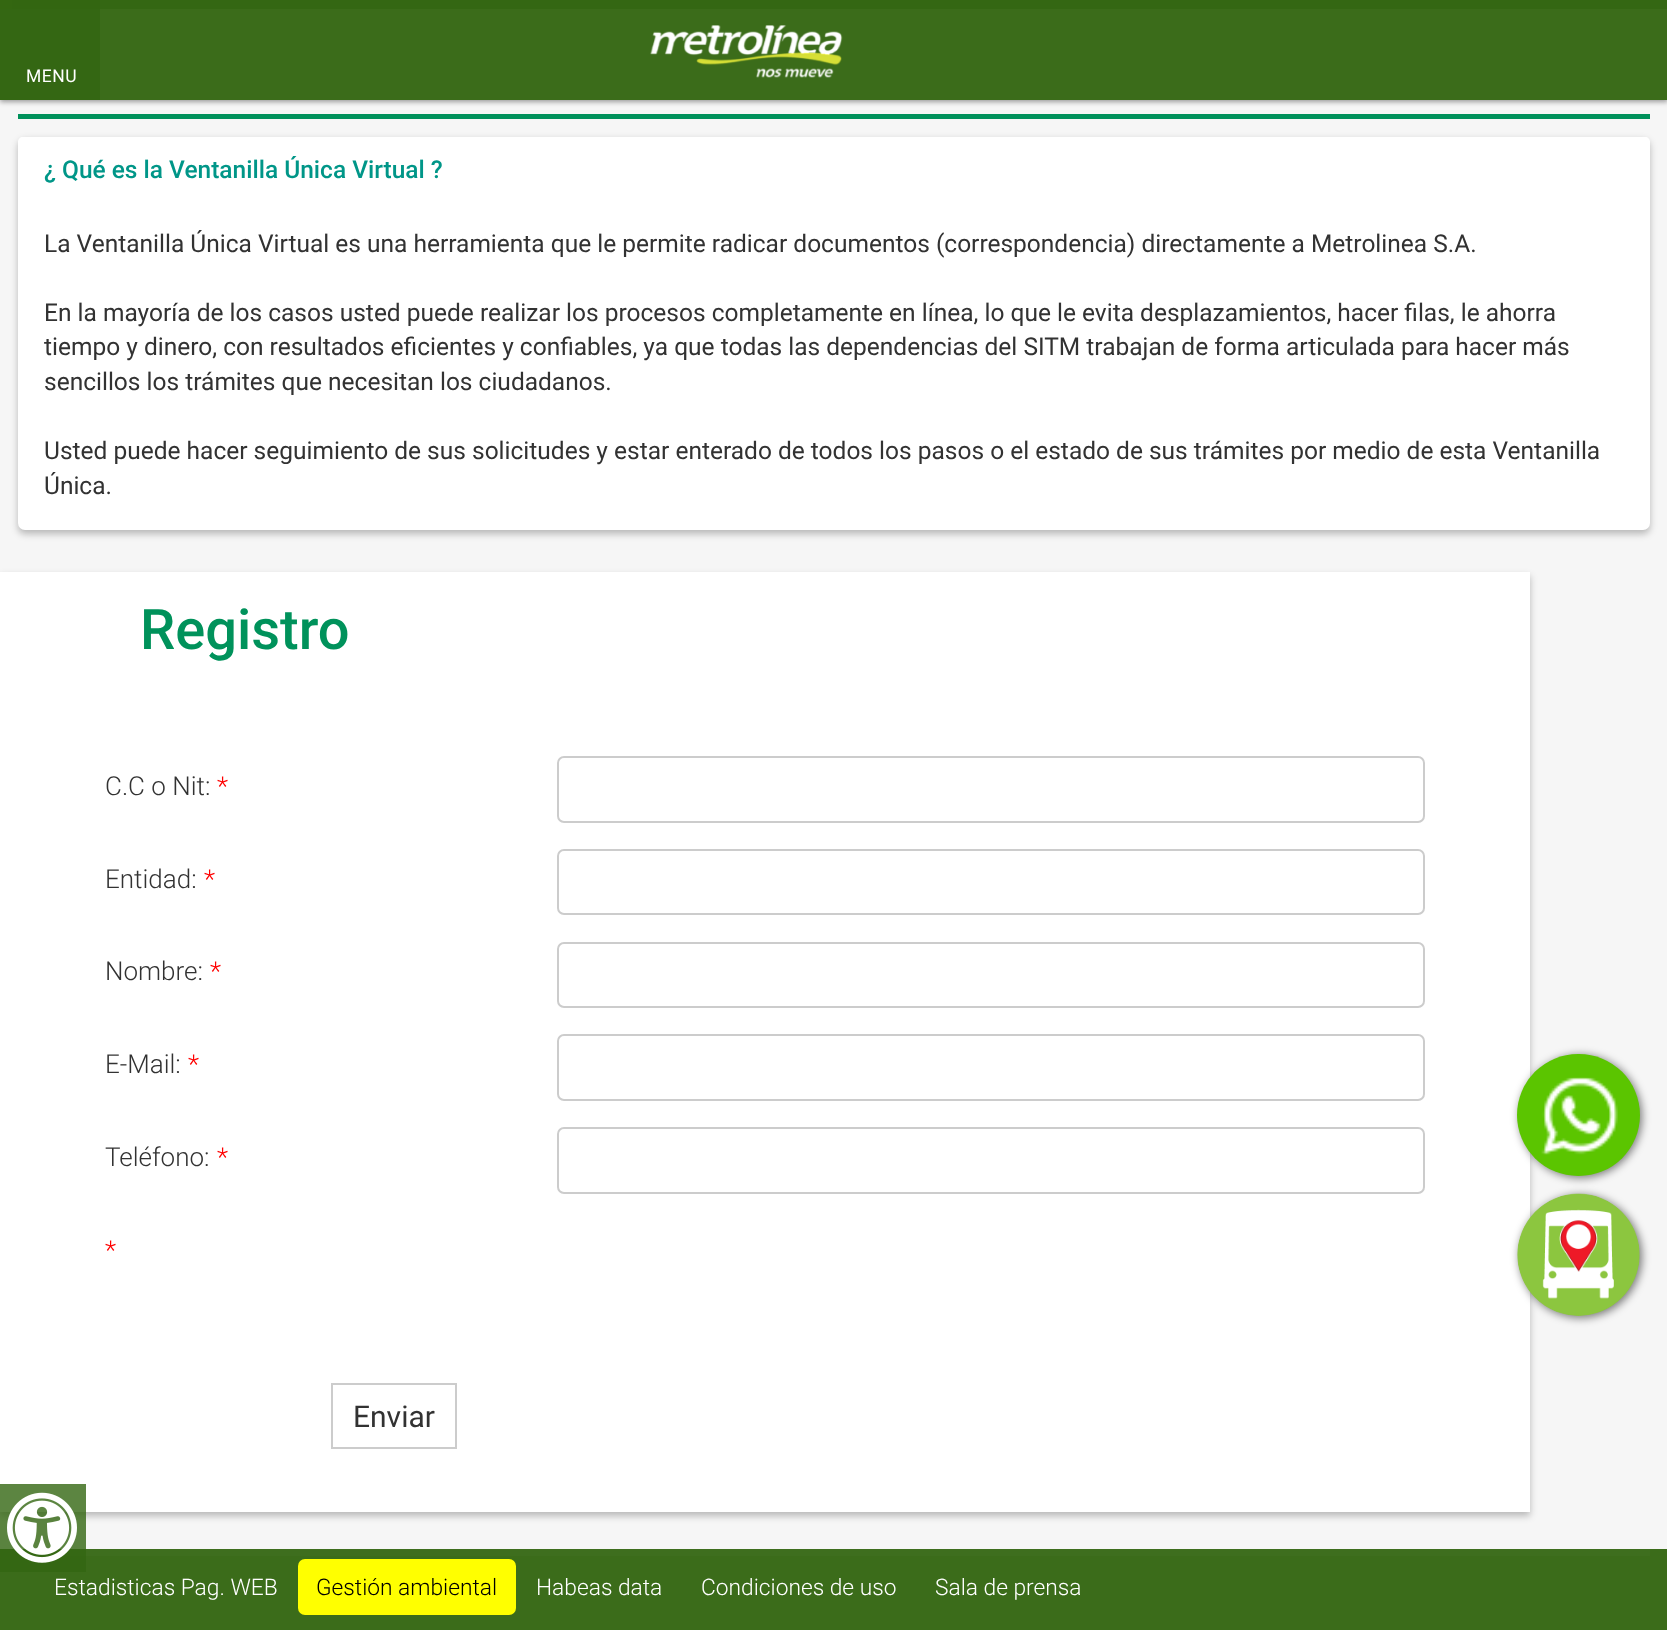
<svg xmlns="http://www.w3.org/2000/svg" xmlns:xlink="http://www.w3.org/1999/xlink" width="1667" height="1630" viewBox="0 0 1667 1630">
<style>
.cls-1{font:17.5px Roboto;letter-spacing:0.5px;fill:#ffffff}
.cls-2{font:500 24.5px Roboto;fill:#009688}
.cls-3{font:24.5px Roboto;fill:#323232}
.cls-4{font:500 56px Roboto;fill:#00925b}
.cls-5{font:300 26px Roboto;fill:#323232}
.cls-6{font:300 26px Roboto;fill:#ff0000}
.cls-7{font:30px Roboto;fill:#323232}
.cls-8{font:300 22.75px Roboto;fill:#ffffff}
.cls-9{font:300 22.75px Roboto;fill:#000000}
</style>
<defs>
<clipPath id="clip1"><path d="M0 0H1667V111H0ZM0 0H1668V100H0Z" clip-rule="evenodd"/></clipPath>
</defs>
<rect width="100%" height="100%" fill="#f6f6f6"/>
<rect fill="#5a833f" x="12" y="0" width="1655" height="9"/>
<rect fill="#d7df18" x="0" y="0" width="12" height="9"/>
<g clip-path="url(#clip1)">
<rect fill="#000000" fill-opacity="0.37" filter="blur(2.5px)" x="0" y="2" width="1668" height="100"/>
</g>
<rect fill="#336611" fill-opacity="0.8" x="0" y="0" width="1667" height="100"/>
<rect fill="#336611" fill-opacity="0.8" x="0" y="0" width="1667" height="100"/>
<rect fill="#336611" fill-opacity="0.8" x="0" y="0" width="100" height="100"/>
<image xlink:href="image0.png" x="650" y="25" width="193" height="53"/>
<rect fill="#00915b" x="18" y="114" width="1632" height="5"/>
<rect fill="#000000" fill-opacity="0.25" filter="blur(3.5px)" x="18" y="140" width="1632" height="394" rx="7"/>
<rect fill="#ffffff" x="18" y="137" width="1632" height="393" rx="7"/>
<path fill="#ffffff" d="M23 137H1645C1648 137 1650 139 1650 142V200H18V142C18 139 20 137 23 137Z"/>
<rect fill="#000000" fill-opacity="0.25" filter="blur(3.5px)" x="0" y="576" width="1530" height="940"/>
<rect fill="#ffffff" x="0" y="572" width="1530" height="940"/>
<rect fill="none" stroke="#cccccc" stroke-width="2" x="558" y="757" width="866" height="65" rx="6"/>
<rect fill="none" stroke="#cccccc" stroke-width="2" x="558" y="850" width="866" height="64" rx="6"/>
<rect fill="none" stroke="#cccccc" stroke-width="2" x="558" y="943" width="866" height="64" rx="6"/>
<rect fill="none" stroke="#cccccc" stroke-width="2" x="558" y="1035" width="866" height="65" rx="6"/>
<rect fill="none" stroke="#cccccc" stroke-width="2" x="558" y="1128" width="866" height="65" rx="6"/>
<rect fill="none" stroke="#cccccc" stroke-width="2" x="332" y="1384" width="124" height="64"/>
<rect fill="#000000" fill-opacity="0.5" filter="blur(4.5px)" x="1519" y="1055" width="123" height="123" rx="61.5"/>
<rect fill="#5bc500" x="1517" y="1054" width="123" height="122" rx="61"/>
<image xlink:href="image1.png" x="1541" y="1077" width="77" height="78"/>
<rect fill="#000000" fill-opacity="0.5" filter="blur(4.5px)" x="1519" y="1195" width="123" height="123" rx="61.5"/>
<image xlink:href="image2.png" x="1517" y="1193" width="123" height="123"/>
<rect fill="#3b6c1a" x="0" y="1549" width="1667" height="81"/>
<rect fill="#3e6e1e" x="18" y="1549" width="1632" height="7"/>
<rect fill="#336611" fill-opacity="0.8" x="0" y="1484" width="86" height="88"/>
<image xlink:href="image3.png" x="7" y="1492" width="70" height="71"/>
<rect fill="#ffff00" x="298" y="1559" width="218" height="56" rx="7"/>
<text class="cls-1" x="26" y="82">MENU</text>
<text class="cls-2" x="44" y="178">¿ Qué es la Ventanilla Única Virtual ?</text>
<text class="cls-3" x="44" y="252">La Ventanilla Única Virtual es una herramienta que le permite radicar documentos (correspondencia) directamente a Metrolinea S.A.</text>
<text class="cls-3"><tspan x="44" y="321">En la mayoría de los casos usted puede realizar los procesos completamente en línea, lo que le evita desplazamientos, hacer filas, le ahorra</tspan><tspan x="44" y="355">tiempo y dinero, con resultados eficientes y confiables, ya que todas las dependencias del SITM trabajan de forma articulada para hacer más</tspan><tspan x="44" y="390">sencillos los trámites que necesitan los ciudadanos.</tspan></text>
<text class="cls-3"><tspan x="44" y="459">Usted puede hacer seguimiento de sus solicitudes y estar enterado de todos los pasos o el estado de sus trámites por medio de esta Ventanilla</tspan><tspan x="44" y="494">Única.</tspan></text>
<text class="cls-4" x="140" y="649">Registro</text>
<text class="cls-5" x="105" y="795">C.C o Nit:</text>
<text class="cls-6" x="217" y="795">*</text>
<text class="cls-5" x="105" y="888">Entidad:</text>
<text class="cls-6" x="204" y="888">*</text>
<text class="cls-5" x="105" y="980">Nombre:</text>
<text class="cls-6" x="210" y="980">*</text>
<text class="cls-5" x="105" y="1073">E-Mail:</text>
<text class="cls-6" x="188" y="1073">*</text>
<text class="cls-5" x="105" y="1166">Teléfono:</text>
<text class="cls-6" x="217" y="1166">*</text>
<text class="cls-6" x="105" y="1259">*</text>
<text class="cls-7" x="353" y="1427">Enviar</text>
<text class="cls-8" x="54" y="1595">Estadisticas Pag. WEB</text>
<text class="cls-9" x="316" y="1595">Gestión ambiental</text>
<text class="cls-8" x="536" y="1595">Habeas data</text>
<text class="cls-8" x="701" y="1595">Condiciones de uso</text>
<text class="cls-8" x="935" y="1595">Sala de prensa</text>
</svg>
